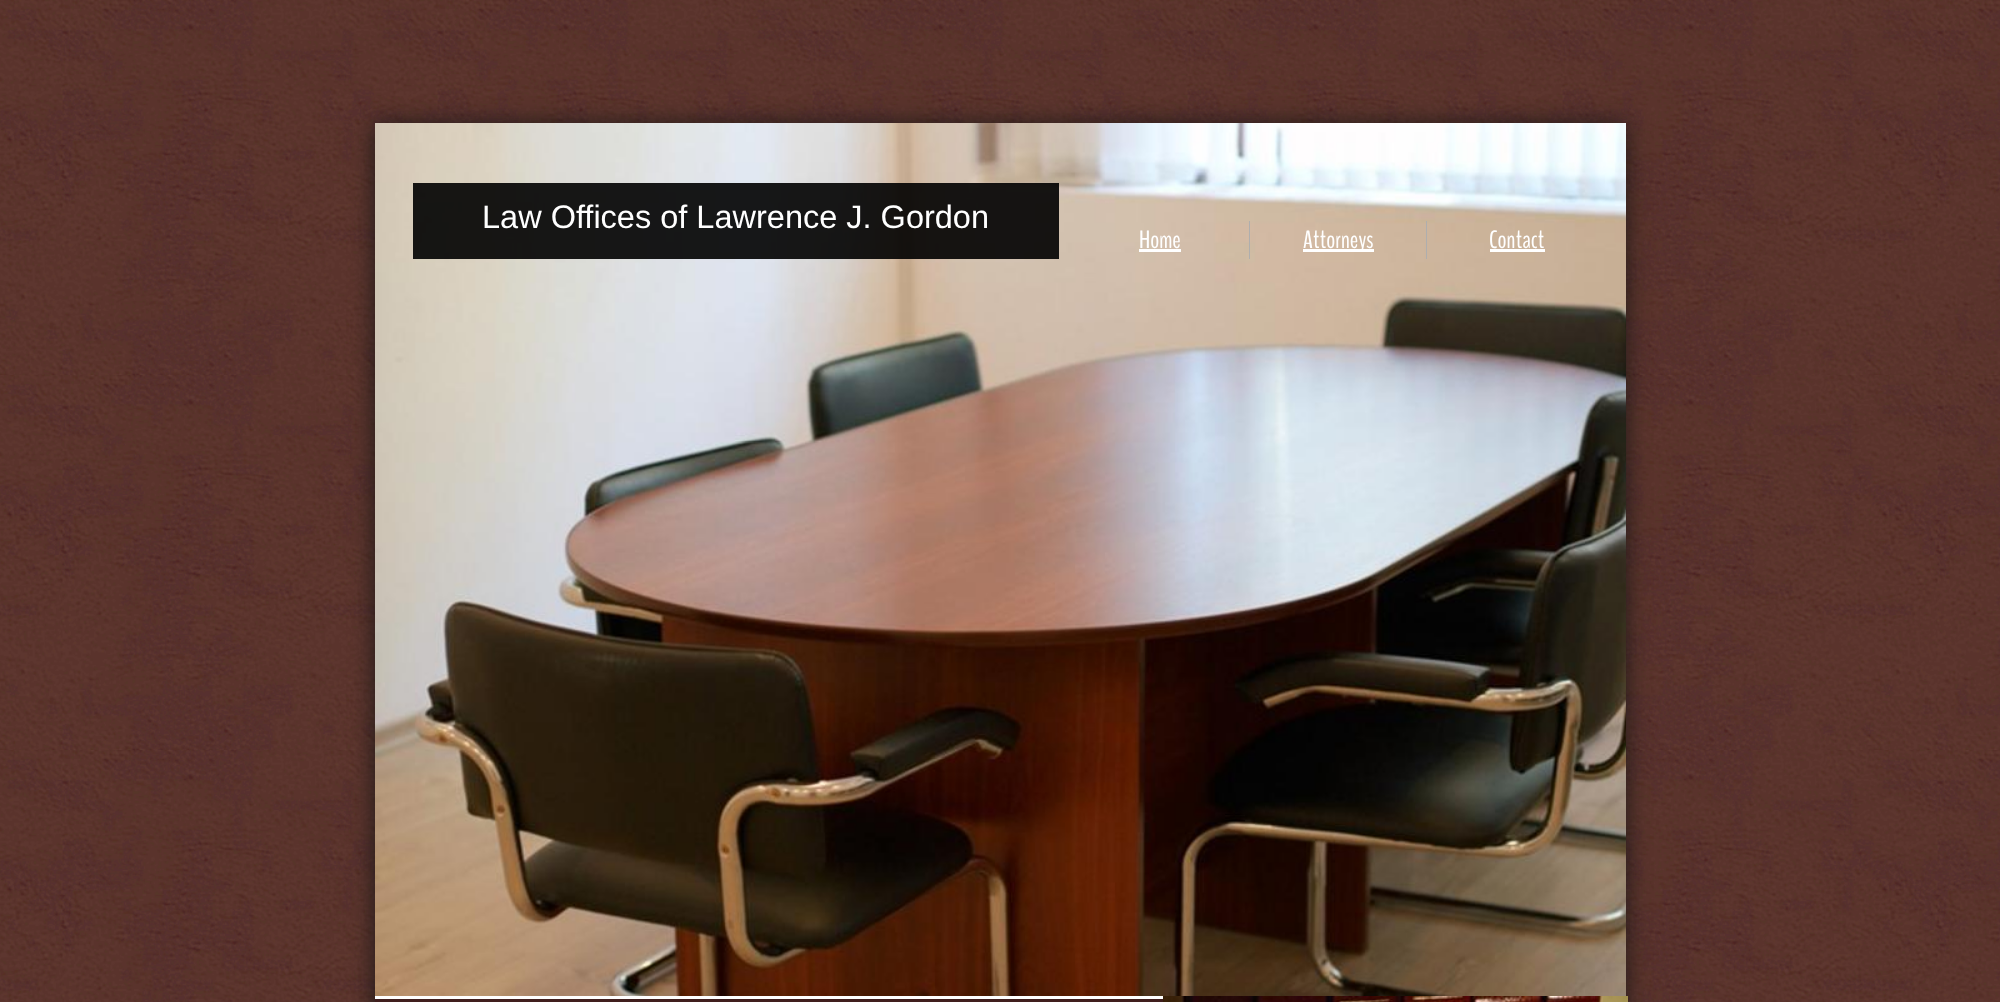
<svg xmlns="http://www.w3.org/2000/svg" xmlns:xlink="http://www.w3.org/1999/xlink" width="2000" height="1002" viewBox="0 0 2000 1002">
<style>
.cls-1{font:32.5px Liberation Sans;fill:#ffffff}
.cls-2{font:25px BenchNine;fill:#ffffff}
</style>
<rect width="100%" height="100%" fill="#ffffff"/>
<image xlink:href="image0.png" x="0" y="0" width="2000" height="1002"/>
<rect fill="#141414" fill-opacity="0.9" filter="blur(12.5px)" x="375" y="125" width="1250" height="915"/>
<rect fill="#ffffff" x="375" y="996" width="788" height="3"/>
<image xlink:href="image1.png" x="375" y="123" width="1251" height="873"/>
<rect fill="#000000" fill-opacity="0.9" x="413" y="183" width="646" height="76"/>
<rect fill="#aeaeae" x="1249" y="221" width="1" height="38"/>
<rect fill="#ffffff" x="1139" y="249" width="42" height="3"/>
<rect fill="#aeaeae" x="1426" y="221" width="1" height="38"/>
<rect fill="#ffffff" x="1303" y="249" width="71" height="3"/>
<rect fill="#ffffff" x="1490" y="249" width="55" height="3"/>
<rect fill="#401e1d" x="375" y="999" width="789" height="3"/>
<image xlink:href="image2.png" x="1163" y="996" width="465" height="6"/>
<text class="cls-1" x="482" y="228">Law Offices of Lawrence J. Gordon</text>
<text class="cls-2" x="1139" y="248">Home</text>
<text class="cls-2" x="1303" y="248">Attorneys</text>
<text class="cls-2" x="1489" y="248">Contact</text>
</svg>
